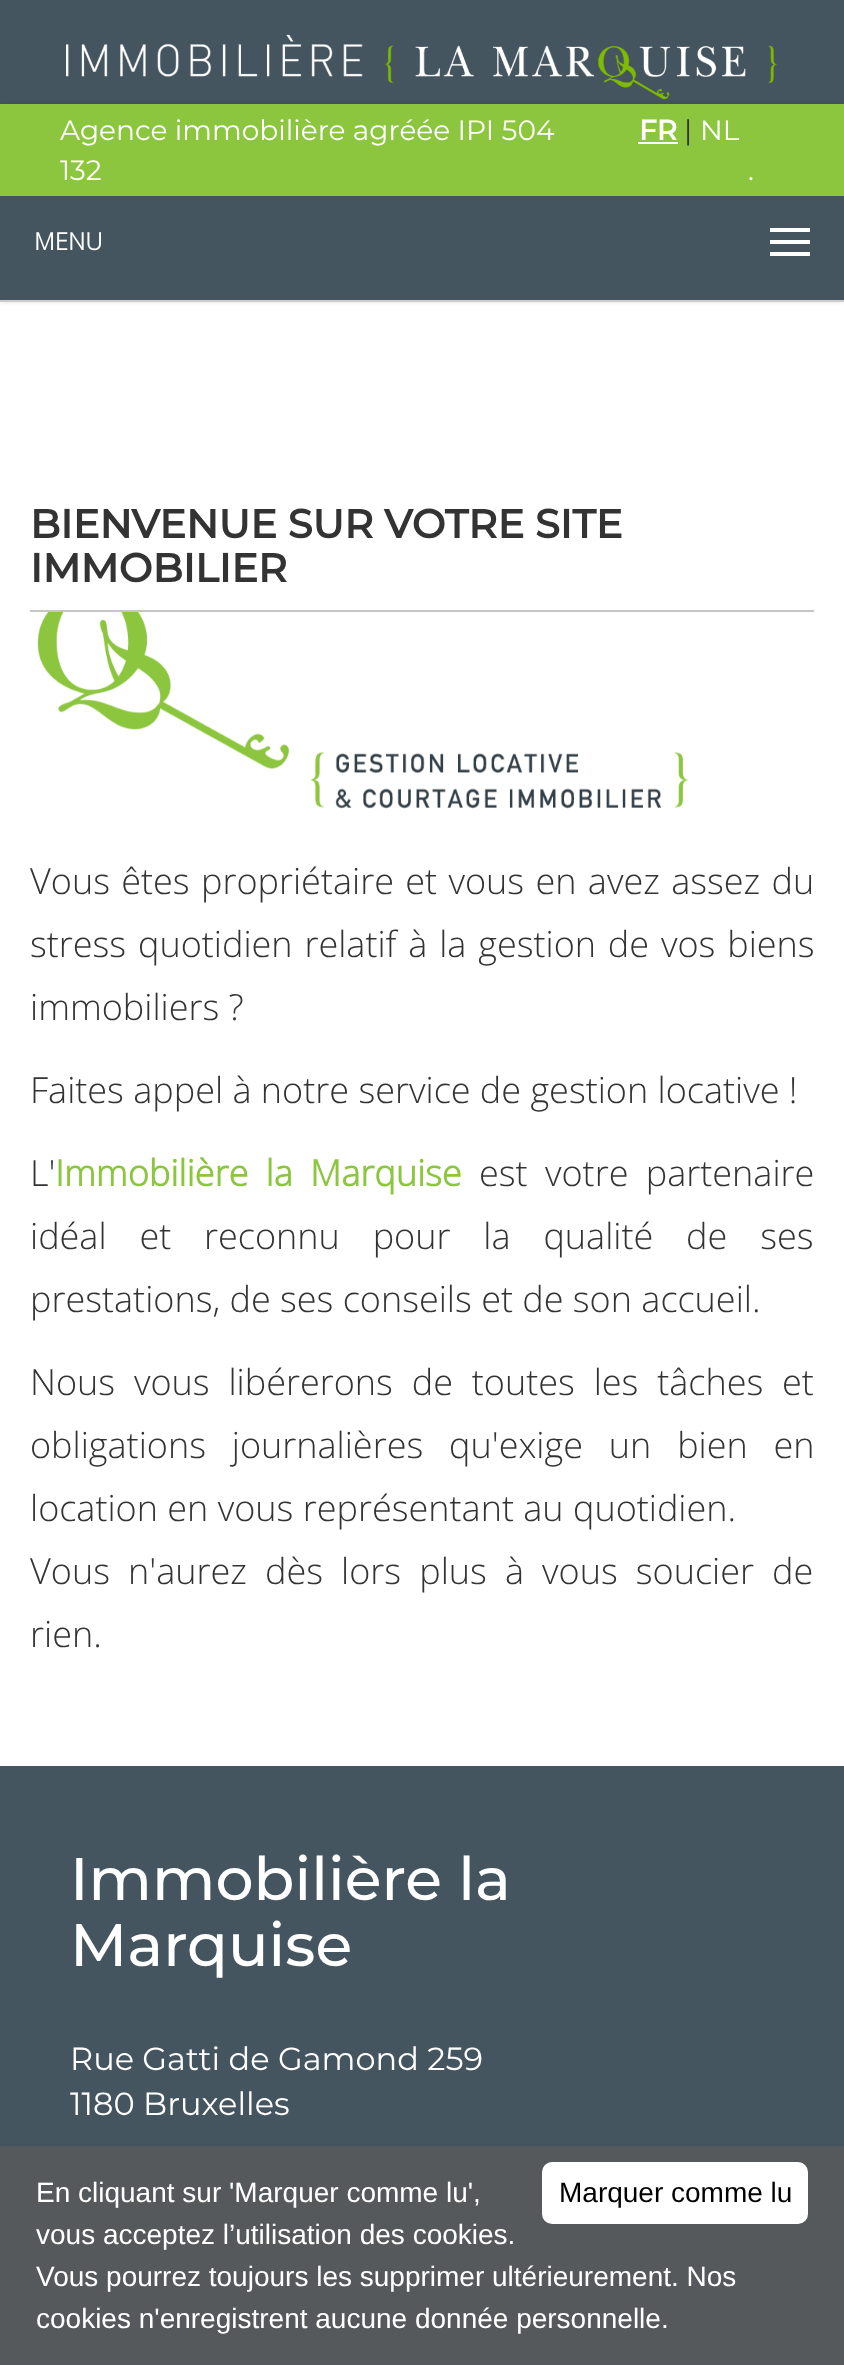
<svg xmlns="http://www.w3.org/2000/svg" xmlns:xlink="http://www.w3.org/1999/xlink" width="844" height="2365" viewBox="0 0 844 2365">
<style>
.cls-1{font:100 28px 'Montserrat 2';fill:#ffffff}
.cls-2{font:bold 28px Montserrat;fill:#ffffff}
.cls-3{font:100 28px 'Montserrat 2';fill:#333333}
.cls-4{font:bold 24px Open Sans;fill:#ffffff}
.cls-5{font:bold 40px Montserrat;fill:#333333}
.cls-6{font:300 36px Open Sans;fill:#333333}
.cls-7{font:bold 36px Open Sans;fill:#8cc63f}
.cls-8{font:100 60px Montserrat;fill:#ffffff}
.cls-9{font:100 32px 'Montserrat 2';fill:#ffffff}
.cls-10{font:28px Liberation Sans;fill:#ffffff}
.cls-11{font:28px Liberation Sans;fill:#000000}
</style>
<rect width="100%" height="100%" fill="#ffffff"/>
<rect fill="#000000" fill-opacity="0.12" filter="blur(2px)" x="0" y="0" width="844" height="302"/>
<rect fill="#cccccc" x="0" y="300" width="844" height="2"/>
<rect fill="#455560" x="0" y="0" width="844" height="104"/>
<rect fill="#000000" fill-opacity="0.12" filter="blur(2px)" x="0" y="104" width="844" height="92"/>
<image xlink:href="image0.png" x="66" y="34" width="711" height="66"/>
<rect fill="#8cc63f" x="0" y="104" width="844" height="92"/>
<rect fill="#ffffff" x="638" y="142" width="40" height="2"/>
<rect fill="#455560" x="0" y="196" width="844" height="104"/>
<rect fill="#ffffff" x="770" y="228" width="40" height="4"/>
<rect fill="#ffffff" x="770" y="240" width="40" height="4"/>
<rect fill="#ffffff" x="770" y="252" width="40" height="4"/>
<rect fill="#c5c5c5" x="30" y="610" width="784" height="2"/>
<image xlink:href="image1.png" x="37" y="612" width="651" height="197"/>
<rect fill="#455560" x="0" y="1766" width="844" height="599"/>
<rect fill="#5a5a5a" fill-opacity="0.8" x="0" y="2146" width="844" height="219"/>
<rect fill="#ffffff" x="542" y="2162" width="266" height="62" rx="10"/>
<text class="cls-1"><tspan x="60" y="140">Agence immobilière agréée IPI 504</tspan><tspan x="60" y="180">132</tspan></text>
<text class="cls-2" x="639" y="140">FR</text>
<text class="cls-3" x="684" y="140">|</text>
<text class="cls-1" x="700" y="140">NL</text>
<text class="cls-1" x="748" y="180">.</text>
<text class="cls-4" x="34" y="250">MENU</text>
<text class="cls-5"><tspan x="30" y="538">BIENVENUE SUR VOTRE SITE</tspan><tspan x="30" y="582">IMMOBILIER</tspan></text>
<text class="cls-6"><tspan x="30" y="894" word-spacing="2">Vous êtes propriétaire et vous en avez assez du</tspan><tspan x="30" y="957" word-spacing="2.5">stress quotidien relatif à la gestion de vos biens</tspan><tspan x="30" y="1020">immobiliers ?</tspan></text>
<text class="cls-6" x="30" y="1103">Faites appel à notre service de gestion locative !</text>
<text class="cls-6" x="30" y="1186">L'</text>
<text class="cls-7" x="55" y="1186" word-spacing="8">Immobilière la Marquise</text>
<text class="cls-6" x="479" y="1186" word-spacing="8">est votre partenaire</text>
<text class="cls-6"><tspan x="30" y="1249" word-spacing="23.5">idéal et reconnu pour la qualité de ses</tspan><tspan x="30" y="1312">prestations, de ses conseils et de son accueil.</tspan></text>
<text class="cls-6"><tspan x="30" y="1395" word-spacing="9.5">Nous vous libérerons de toutes les tâches et</tspan><tspan x="30" y="1458" word-spacing="16.5">obligations journalières qu'exige un bien en</tspan><tspan x="30" y="1521">location en vous représentant au quotidien.</tspan><tspan x="30" y="1584" word-spacing="8.75">Vous n'aurez dès lors plus à vous soucier de</tspan><tspan x="30" y="1647">rien.</tspan></text>
<text class="cls-8"><tspan x="70" y="1900">Immobilière la</tspan><tspan x="70" y="1966">Marquise</tspan></text>
<text class="cls-9"><tspan x="70" y="2070">Rue Gatti de Gamond 259</tspan><tspan x="70" y="2115">1180 Bruxelles</tspan></text>
<text class="cls-10"><tspan x="36" y="2202">En cliquant sur 'Marquer comme lu',</tspan><tspan x="36" y="2244">vous acceptez l’utilisation des cookies.</tspan><tspan x="36" y="2286">Vous pourrez toujours les supprimer ultérieurement. Nos</tspan><tspan x="36" y="2328">cookies n'enregistrent aucune donnée personnelle.</tspan></text>
<text class="cls-11" x="559" y="2202">Marquer comme lu</text>
</svg>
